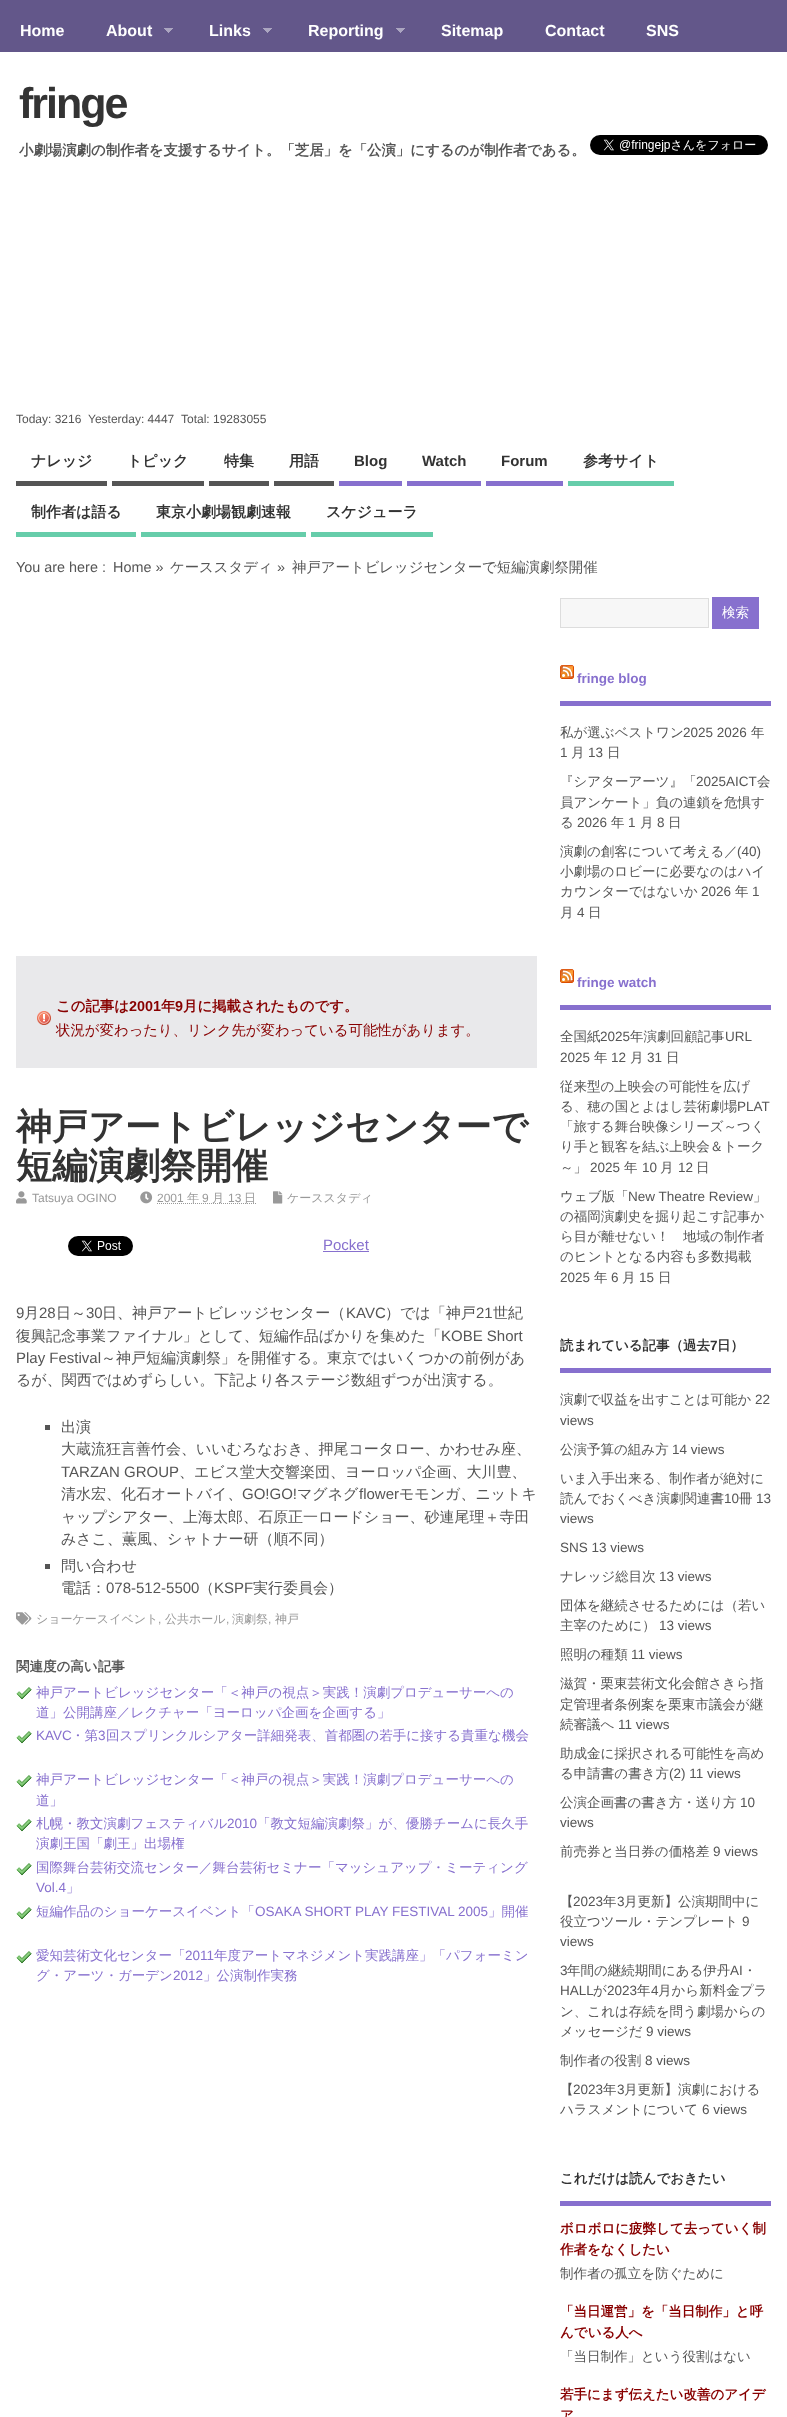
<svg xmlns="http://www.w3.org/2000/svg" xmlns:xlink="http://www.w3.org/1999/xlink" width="787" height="2417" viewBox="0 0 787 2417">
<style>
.cls-1{font:bold 16px Liberation Sans;fill:#ffffff}
.cls-2{font:bold 43px Liberation Sans;letter-spacing:-2px;fill:#333333}
.cls-3{font:bold 14.4px WenQuanYi Zen Hei;fill:#555555}
.cls-4{font:12px Liberation Sans;fill:#555555}
.cls-5{font:bold 15px WenQuanYi Zen Hei;fill:#333333}
.cls-6{font:bold 15px Liberation Sans;fill:#333333}
.cls-7{font:14.4px Liberation Sans;fill:#555555}
.cls-8{font:500 14.4px WenQuanYi Zen Hei;fill:#555555}
.cls-9{font:bold 14.4px WenQuanYi Zen Hei;fill:#880000}
.cls-10{font:bold 14.4px Liberation Sans;fill:#880000}
.cls-11{font:500 14.4px WenQuanYi Zen Hei;fill:#880000}
.cls-12{font:bold 36px WenQuanYi Zen Hei;fill:#333333}
.cls-13{font:12px Liberation Sans;fill:#999999}
.cls-14{font:500 12px WenQuanYi Zen Hei;fill:#999999}
.cls-15{font:15px Liberation Sans;fill:#8770ce}
.cls-16{font:15px Liberation Sans;fill:#555555}
.cls-17{font:500 15px WenQuanYi Zen Hei;fill:#555555}
.cls-18{font:bold 13.5px WenQuanYi Zen Hei;fill:#555555}
.cls-19{font:500 13.5px WenQuanYi Zen Hei;fill:#8770ce}
.cls-20{font:13.5px Liberation Sans;fill:#8770ce}
.cls-21{font:500 13.5px WenQuanYi Zen Hei;fill:#ffffff}
.cls-22{font:bold 13.5px Liberation Sans;fill:#8770ce}
.cls-23{font:500 13.5px WenQuanYi Zen Hei;fill:#555555}
.cls-24{font:13.5px Liberation Sans;fill:#555555}
.cls-25{font:bold 13.5px WenQuanYi Zen Hei;fill:#333333}
.cls-26{font:bold 13.5px Liberation Sans;fill:#333333}
.cls-27{font:bold 13.5px WenQuanYi Zen Hei;fill:#880000}
</style>
<rect width="100%" height="100%" fill="#ffffff"/>
<rect fill="#63578a" x="0" y="0" width="787" height="52"/>
<image xlink:href="image0.png" x="164" y="28" width="9" height="5"/>
<image xlink:href="image0.png" x="263" y="28" width="9" height="5"/>
<image xlink:href="image0.png" x="396" y="28" width="9" height="5"/>
<image xlink:href="image1.png" x="590" y="135" width="178" height="20"/>
<rect fill="#555555" x="16" y="481" width="91" height="5"/>
<rect fill="#555555" x="112" y="481" width="92" height="5"/>
<rect fill="#555555" x="209" y="481" width="60" height="5"/>
<rect fill="#555555" x="274" y="481" width="60" height="5"/>
<rect fill="#8770ce" x="339" y="481" width="63" height="5"/>
<rect fill="#8770ce" x="407" y="481" width="74" height="5"/>
<rect fill="#8770ce" x="486" y="481" width="77" height="5"/>
<rect fill="#66cdaa" x="568" y="481" width="106" height="5"/>
<rect fill="#66cdaa" x="16" y="532" width="120" height="5"/>
<rect fill="#66cdaa" x="141" y="532" width="165" height="5"/>
<rect fill="#66cdaa" x="311" y="532" width="122" height="5"/>
<rect fill="#e9e9eb" x="16" y="956" width="521" height="112"/>
<image xlink:href="image2.png" x="37" y="1011" width="14" height="14"/>
<image xlink:href="image3.png" x="16" y="1191" width="11" height="13"/>
<image xlink:href="image4.png" x="140" y="1191" width="13" height="13"/>
<path fill="none" stroke="#999999" stroke-dasharray="1 1" d="M157 1203.5H256"/>
<image xlink:href="image5.png" x="273" y="1191" width="10" height="13"/>
<image xlink:href="image6.png" x="68" y="1236" width="65" height="20"/>
<rect fill="#8770ce" x="323" y="1251" width="46" height="1"/>
<rect fill="#555555" x="45" y="1425" width="5" height="5"/>
<rect fill="#555555" x="45" y="1564" width="5" height="5"/>
<image xlink:href="image7.png" x="16" y="1612" width="16" height="13"/>
<image xlink:href="image8.png" x="16" y="1687" width="16" height="13"/>
<image xlink:href="image8.png" x="16" y="1731" width="16" height="13"/>
<image xlink:href="image8.png" x="16" y="1775" width="16" height="13"/>
<image xlink:href="image8.png" x="16" y="1819" width="16" height="13"/>
<image xlink:href="image8.png" x="16" y="1863" width="16" height="13"/>
<image xlink:href="image8.png" x="16" y="1907" width="16" height="13"/>
<image xlink:href="image8.png" x="16" y="1951" width="16" height="13"/>
<rect fill="#f7f7f7" stroke="#dddddd" x="560.5" y="598.5" width="148" height="29"/>
<rect fill="#8770ce" x="712" y="597" width="47" height="32"/>
<rect fill="#8770ce" x="560" y="701" width="211" height="5"/>
<image xlink:href="image9.png" x="560" y="665" width="14" height="14"/>
<rect fill="#8770ce" x="560" y="1005" width="211" height="5"/>
<image xlink:href="image9.png" x="560" y="969" width="14" height="14"/>
<rect fill="#8770ce" x="560" y="1368" width="211" height="5"/>
<rect fill="#8770ce" x="560" y="2201" width="211" height="5"/>
<text class="cls-1" x="20" y="36">Home</text>
<text class="cls-1" x="106" y="36">About</text>
<text class="cls-1" x="209" y="36">Links</text>
<text class="cls-1" x="308" y="36">Reporting</text>
<text class="cls-1" x="441" y="36">Sitemap</text>
<text class="cls-1" x="545" y="36">Contact</text>
<text class="cls-1" x="646" y="36">SNS</text>
<text class="cls-2" x="19" y="118">fringe</text>
<text class="cls-3" x="19" y="155">小劇場演劇の制作者を支援するサイト。「芝居」を「公演」にするのが制作者である。</text>
<text class="cls-4" x="16" y="423">Today: 3216</text>
<text class="cls-4" x="88" y="423">Yesterday: 4447</text>
<text class="cls-4" x="181" y="423">Total: 19283055</text>
<text class="cls-5" x="31" y="466">ナレッジ</text>
<text class="cls-5" x="127" y="466">トピック</text>
<text class="cls-5" x="224" y="466">特集</text>
<text class="cls-5" x="289" y="466">用語</text>
<text class="cls-6" x="354" y="466">Blog</text>
<text class="cls-6" x="422" y="466">Watch</text>
<text class="cls-6" x="501" y="466">Forum</text>
<text class="cls-5" x="583" y="466">参考サイト</text>
<text class="cls-5" x="31" y="517">制作者は語る</text>
<text class="cls-5" x="156" y="517">東京小劇場観劇速報</text>
<text class="cls-5" x="326" y="517">スケジューラ</text>
<text class="cls-7" x="16" y="572">You are here :</text>
<text class="cls-7" x="113" y="572">Home »</text>
<text class="cls-8" x="170" y="572">ケーススタディ</text>
<text class="cls-7" x="277" y="572">»</text>
<text class="cls-8" x="292" y="572">神戸アートビレッジセンターで短編演劇祭開催</text>
<text class="cls-9" x="56" y="1011">この記事は</text>
<text class="cls-10" x="129" y="1011">2001</text>
<text class="cls-9" x="161" y="1011">年</text>
<text class="cls-10" x="175" y="1011">9</text>
<text class="cls-9" x="183" y="1011">月に掲載されたものです。</text>
<text class="cls-11" x="56" y="1035">状況が変わったり、リンク先が変わっている可能性があります。</text>
<text class="cls-12"><tspan x="16" y="1139">神戸アートビレッジセンターで</tspan><tspan x="16" y="1178">短編演劇祭開催</tspan></text>
<text class="cls-13" x="32" y="1202">Tatsuya OGINO</text>
<text class="cls-13" x="157" y="1202">2001</text>
<text class="cls-14" x="187" y="1202">年</text>
<text class="cls-13" x="202" y="1202">9</text>
<text class="cls-14" x="212" y="1202">月</text>
<text class="cls-13" x="228" y="1202">13</text>
<text class="cls-14" x="244" y="1202">日</text>
<text class="cls-14" x="287" y="1202">ケーススタディ</text>
<text class="cls-15" x="323" y="1250">Pocket</text>
<text class="cls-16" x="16" y="1318">9</text>
<text class="cls-17" x="24" y="1318">月</text>
<text class="cls-16" x="39" y="1318">28</text>
<text class="cls-17" x="56" y="1318">日～</text>
<text class="cls-16" x="86" y="1318">30</text>
<text class="cls-17" x="102" y="1318">日、神戸アートビレッジセンター（</text>
<text class="cls-16" x="346" y="1318">KAVC</text>
<text class="cls-17" x="385" y="1318">）では「神戸</text>
<text class="cls-16" x="476" y="1318">21</text>
<text class="cls-17" x="493" y="1318">世紀</text>
<text class="cls-17" x="16" y="1341">復興記念事業ファイナル」として、短編作品ばかりを集めた「</text>
<text class="cls-16" x="441" y="1341">KOBE Short</text>
<text class="cls-16" x="16" y="1363">Play Festival</text>
<text class="cls-17" x="101" y="1363">～神戸短編演劇祭」を開催する。東京ではいくつかの前例があ</text>
<text class="cls-17" x="16" y="1385">るが、関西ではめずらしい。下記より各ステージ数組ずつが出演する。</text>
<text class="cls-17"><tspan x="61" y="1432">出演</tspan><tspan x="61" y="1454">大蔵流狂言善竹会、いいむろなおき、押尾コータロー、かわせみ座、</tspan></text>
<text class="cls-16" x="61" y="1477">TARZAN GROUP</text>
<text class="cls-17" x="179" y="1477">、エビス堂大交響楽団、ヨーロッパ企画、大川豊、</text>
<text class="cls-17" x="61" y="1499">清水宏、化石オートバイ、</text>
<text class="cls-16" x="242" y="1499">GO!GO!</text>
<text class="cls-17" x="297" y="1499">マグネグ</text>
<text class="cls-16" x="359" y="1499">flower</text>
<text class="cls-17" x="399" y="1499">モモンガ、ニットキ</text>
<text class="cls-17"><tspan x="61" y="1522">ャップシアター、上海太郎、石原正一ロードショー、砂連尾理＋寺田</tspan><tspan x="61" y="1544">みさこ、薫風、シャトナー研（順不同）</tspan><tspan x="61" y="1571">問い合わせ</tspan><tspan x="61" y="1593">電話：</tspan></text>
<text class="cls-16" x="106" y="1593">078-512-5500</text>
<text class="cls-17" x="199" y="1593">（</text>
<text class="cls-16" x="214" y="1593">KSPF</text>
<text class="cls-17" x="253" y="1593">実行委員会）</text>
<text class="cls-14" x="36" y="1623">ショーケースイベント</text>
<text class="cls-13" x="158" y="1623">,</text>
<text class="cls-14" x="165" y="1623">公共ホール</text>
<text class="cls-13" x="226" y="1623">,</text>
<text class="cls-14" x="232" y="1623">演劇祭</text>
<text class="cls-13" x="268" y="1623">,</text>
<text class="cls-14" x="275" y="1623">神戸</text>
<text class="cls-18" x="16" y="1671">関連度の高い記事</text>
<text class="cls-19"><tspan x="36" y="1697">神戸アートビレッジセンター「＜神戸の視点＞実践！演劇プロデューサーへの</tspan><tspan x="36" y="1717">道」公開講座／レクチャー「ヨーロッパ企画を企画する」</tspan></text>
<text class="cls-20" x="36" y="1740">KAVC</text>
<text class="cls-19" x="71" y="1740">・第</text>
<text class="cls-20" x="98" y="1740">3</text>
<text class="cls-19" x="106" y="1740">回スプリンクルシアター詳細発表、首都圏の若手に接する貴重な機会</text>
<text class="cls-19"><tspan x="36" y="1784">神戸アートビレッジセンター「＜神戸の視点＞実践！演劇プロデューサーへの</tspan><tspan x="36" y="1805">道」</tspan><tspan x="36" y="1828">札幌・教文演劇フェスティバル</tspan></text>
<text class="cls-20" x="227" y="1828">2010</text>
<text class="cls-19" x="257" y="1828">「教文短編演劇祭」が、優勝チームに長久手</text>
<text class="cls-19"><tspan x="36" y="1848">演劇王国「劇王」出場権</tspan><tspan x="36" y="1872">国際舞台芸術交流センター／舞台芸術セミナー「マッシュアップ・ミーティング</tspan></text>
<text class="cls-20" x="36" y="1892">Vol.4</text>
<text class="cls-19" x="66" y="1892">」</text>
<text class="cls-19" x="36" y="1916">短編作品のショーケースイベント「</text>
<text class="cls-20" x="255" y="1916">OSAKA SHORT PLAY FESTIVAL 2005</text>
<text class="cls-19" x="488" y="1916">」開催</text>
<text class="cls-19" x="36" y="1960">愛知芸術文化センター「</text>
<text class="cls-20" x="185" y="1960">2011</text>
<text class="cls-19" x="214" y="1960">年度アートマネジメント実践講座」「パフォーミン</text>
<text class="cls-19" x="36" y="1980">グ・アーツ・ガーデン</text>
<text class="cls-20" x="173" y="1980">2012</text>
<text class="cls-19" x="203" y="1980">」公演制作実務</text>
<text class="cls-21" x="722" y="617">検索</text>
<text class="cls-22" x="577" y="683">fringe blog</text>
<text class="cls-23" x="560" y="737">私が選ぶベストワン</text>
<text class="cls-24" x="683" y="737">2025 2026</text>
<text class="cls-23" x="751" y="737">年</text>
<text class="cls-24" x="560" y="757">1</text>
<text class="cls-23" x="571" y="757">月</text>
<text class="cls-24" x="588" y="757">13</text>
<text class="cls-23" x="607" y="757">日</text>
<text class="cls-23" x="560" y="786">『シアターアーツ』「</text>
<text class="cls-24" x="696" y="786">2025AICT</text>
<text class="cls-23" x="757" y="786">会</text>
<text class="cls-23"><tspan x="560" y="807">員アンケート」負の連鎖を危惧す</tspan><tspan x="560" y="827">る</tspan></text>
<text class="cls-24" x="577" y="827">2026</text>
<text class="cls-23" x="611" y="827">年</text>
<text class="cls-24" x="628" y="827">1</text>
<text class="cls-23" x="640" y="827">月</text>
<text class="cls-24" x="657" y="827">8</text>
<text class="cls-23" x="668" y="827">日</text>
<text class="cls-23" x="560" y="856">演劇の創客について考える／</text>
<text class="cls-24" x="737" y="856">(40)</text>
<text class="cls-23"><tspan x="560" y="876">小劇場のロビーに必要なのはハイ</tspan><tspan x="560" y="896">カウンターではないか</tspan></text>
<text class="cls-24" x="701" y="896">2026</text>
<text class="cls-23" x="735" y="896">年</text>
<text class="cls-24" x="752" y="896">1</text>
<text class="cls-23" x="560" y="917">月</text>
<text class="cls-24" x="577" y="917">4</text>
<text class="cls-23" x="588" y="917">日</text>
<text class="cls-22" x="577" y="987">fringe watch</text>
<text class="cls-23" x="560" y="1041">全国紙</text>
<text class="cls-24" x="600" y="1041">2025</text>
<text class="cls-23" x="630" y="1041">年演劇回顧記事</text>
<text class="cls-24" x="725" y="1041">URL</text>
<text class="cls-24" x="560" y="1062">2025</text>
<text class="cls-23" x="594" y="1062">年</text>
<text class="cls-24" x="611" y="1062">12</text>
<text class="cls-23" x="630" y="1062">月</text>
<text class="cls-24" x="647" y="1062">31</text>
<text class="cls-23" x="666" y="1062">日</text>
<text class="cls-23"><tspan x="560" y="1091">従来型の上映会の可能性を広げ</tspan><tspan x="560" y="1111">る、穂の国とよはし芸術劇場</tspan></text>
<text class="cls-24" x="737" y="1111">PLAT</text>
<text class="cls-23"><tspan x="560" y="1131">「旅する舞台映像シリーズ～つく</tspan><tspan x="560" y="1151">り手と観客を結ぶ上映会＆トーク</tspan><tspan x="560" y="1172">～」</tspan></text>
<text class="cls-24" x="590" y="1172">2025</text>
<text class="cls-23" x="624" y="1172">年</text>
<text class="cls-24" x="642" y="1172">10</text>
<text class="cls-23" x="660" y="1172">月</text>
<text class="cls-24" x="678" y="1172">12</text>
<text class="cls-23" x="696" y="1172">日</text>
<text class="cls-23" x="560" y="1201">ウェブ版「</text>
<text class="cls-24" x="628" y="1201">New Theatre Review</text>
<text class="cls-23" x="753" y="1201">」</text>
<text class="cls-23"><tspan x="560" y="1221">の福岡演劇史を掘り起こす記事か</tspan><tspan x="560" y="1241">ら目が離せない！　地域の制作者</tspan><tspan x="560" y="1261">のヒントとなる内容も多数掲載</tspan></text>
<text class="cls-24" x="560" y="1282">2025</text>
<text class="cls-23" x="594" y="1282">年</text>
<text class="cls-24" x="611" y="1282">6</text>
<text class="cls-23" x="622" y="1282">月</text>
<text class="cls-24" x="639" y="1282">15</text>
<text class="cls-23" x="658" y="1282">日</text>
<text class="cls-25" x="560" y="1350">読まれている記事（過去</text>
<text class="cls-26" x="710" y="1350">7</text>
<text class="cls-25" x="717" y="1350">日）</text>
<text class="cls-23" x="560" y="1404">演劇で収益を出すことは可能か</text>
<text class="cls-24" x="755" y="1404">22</text>
<text class="cls-24" x="560" y="1425">views</text>
<text class="cls-23" x="560" y="1454">公演予算の組み方</text>
<text class="cls-24" x="672" y="1454">14 views</text>
<text class="cls-23"><tspan x="560" y="1483">いま入手出来る、制作者が絶対に</tspan><tspan x="560" y="1503">読んでおくべき演劇関連書</tspan></text>
<text class="cls-24" x="724" y="1503">10</text>
<text class="cls-23" x="739" y="1503">冊</text>
<text class="cls-24" x="756" y="1503">13</text>
<text class="cls-24" x="560" y="1523">views</text>
<text class="cls-24" x="560" y="1552">SNS 13 views</text>
<text class="cls-23" x="560" y="1581">ナレッジ総目次</text>
<text class="cls-24" x="659" y="1581">13 views</text>
<text class="cls-23"><tspan x="560" y="1610">団体を継続させるためには（若い</tspan><tspan x="560" y="1630">主宰のために）</tspan></text>
<text class="cls-24" x="659" y="1630">13 views</text>
<text class="cls-23" x="560" y="1659">照明の種類</text>
<text class="cls-24" x="631" y="1659">11 views</text>
<text class="cls-23"><tspan x="560" y="1688">滋賀・栗東芸術文化会館さきら指</tspan><tspan x="560" y="1709">定管理者条例案を栗東市議会が継</tspan><tspan x="560" y="1729">続審議へ</tspan></text>
<text class="cls-24" x="618" y="1729">11 views</text>
<text class="cls-23"><tspan x="560" y="1758">助成金に採択される可能性を高め</tspan><tspan x="560" y="1778">る申請書の書き方</tspan></text>
<text class="cls-24" x="669" y="1778">(2) 11 views</text>
<text class="cls-23" x="560" y="1807">公演企画書の書き方・送り方</text>
<text class="cls-24" x="740" y="1807">10</text>
<text class="cls-24" x="560" y="1827">views</text>
<text class="cls-23" x="560" y="1856">前売券と当日券の価格差</text>
<text class="cls-24" x="713" y="1856">9 views</text>
<text class="cls-23" x="560" y="1906">【</text>
<text class="cls-24" x="573" y="1906">2023</text>
<text class="cls-23" x="603" y="1906">年</text>
<text class="cls-24" x="617" y="1906">3</text>
<text class="cls-23" x="624" y="1906">月更新】公演期間中に</text>
<text class="cls-23" x="560" y="1926">役立つツール・テンプレート</text>
<text class="cls-24" x="742" y="1926">9</text>
<text class="cls-24" x="560" y="1946">views</text>
<text class="cls-24" x="560" y="1975">3</text>
<text class="cls-23" x="567" y="1975">年間の継続期間にある伊丹</text>
<text class="cls-24" x="730" y="1975">AI</text>
<text class="cls-23" x="743" y="1975">・</text>
<text class="cls-24" x="560" y="1995">HALL</text>
<text class="cls-23" x="593" y="1995">が</text>
<text class="cls-24" x="607" y="1995">2023</text>
<text class="cls-23" x="637" y="1995">年</text>
<text class="cls-24" x="651" y="1995">4</text>
<text class="cls-23" x="658" y="1995">月から新料金プラ</text>
<text class="cls-23"><tspan x="560" y="2016">ン、これは存続を問う劇場からの</tspan><tspan x="560" y="2036">メッセージだ</tspan></text>
<text class="cls-24" x="646" y="2036">9 views</text>
<text class="cls-23" x="560" y="2065">制作者の役割</text>
<text class="cls-24" x="645" y="2065">8 views</text>
<text class="cls-23" x="560" y="2094">【</text>
<text class="cls-24" x="573" y="2094">2023</text>
<text class="cls-23" x="603" y="2094">年</text>
<text class="cls-24" x="617" y="2094">3</text>
<text class="cls-23" x="624" y="2094">月更新】演劇における</text>
<text class="cls-23" x="560" y="2114">ハラスメントについて</text>
<text class="cls-24" x="702" y="2114">6 views</text>
<text class="cls-25" x="560" y="2183">これだけは読んでおきたい</text>
<text class="cls-27"><tspan x="560" y="2233">ボロボロに疲弊して去っていく制</tspan><tspan x="560" y="2254">作者をなくしたい</tspan></text>
<text class="cls-23" x="560" y="2278">制作者の孤立を防ぐために</text>
<text class="cls-27"><tspan x="560" y="2316">「当日運営」を「当日制作」と呼</tspan><tspan x="560" y="2337">んでいる人へ</tspan></text>
<text class="cls-23" x="560" y="2361">「当日制作」という役割はない</text>
<text class="cls-27"><tspan x="560" y="2399">若手にまず伝えたい改善のアイデ</tspan><tspan x="560" y="2420">ア</tspan></text>
</svg>
